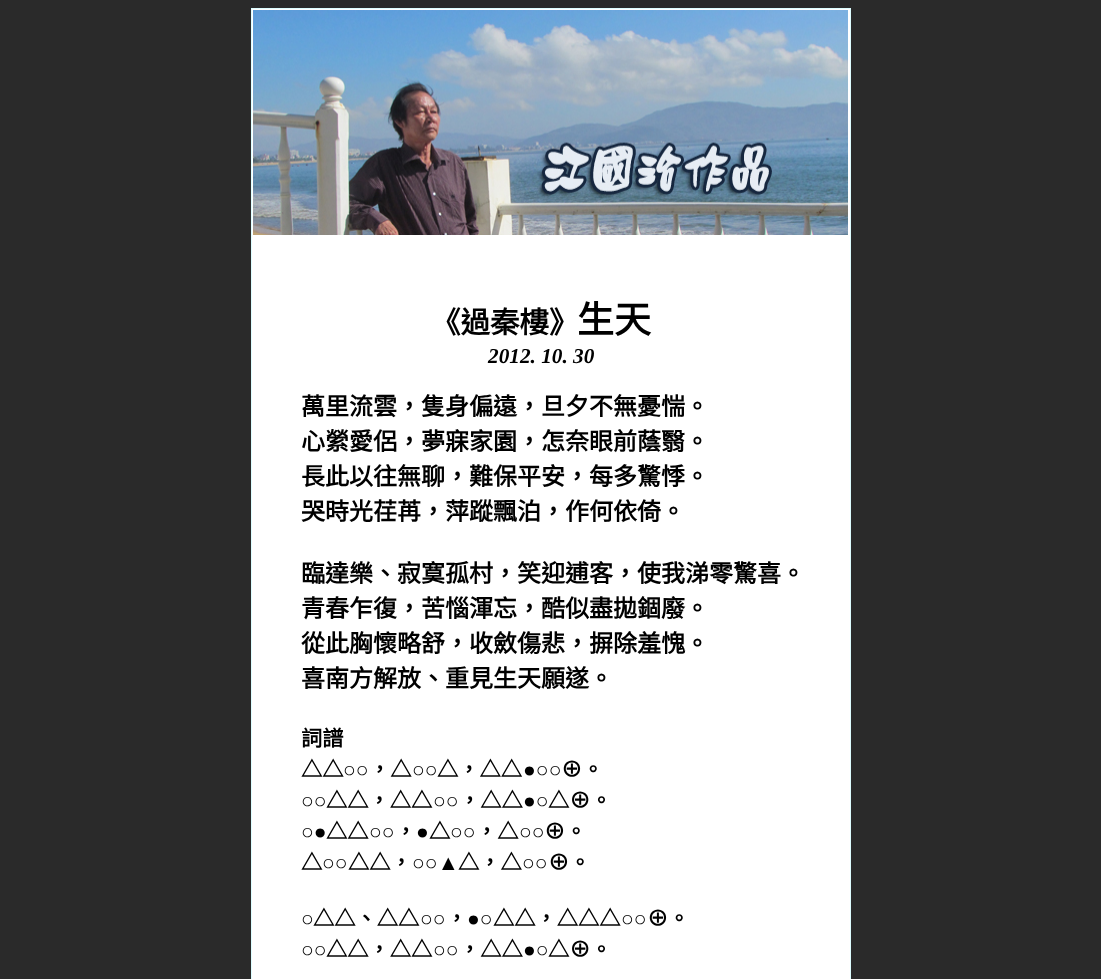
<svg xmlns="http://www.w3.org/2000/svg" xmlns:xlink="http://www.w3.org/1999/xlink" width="1101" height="979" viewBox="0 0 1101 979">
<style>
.cls-1{font:bold 29.5px Noto Sans CJK TC;fill:#000000}
.cls-2{font:bold 37px Noto Sans CJK TC;fill:#000000}
.cls-3{font:italic bold 21.25px Liberation Serif;fill:#000000}
.cls-4{font:bold 24px Noto Sans CJK TC;fill:#000000}
.cls-5{font:bold 21.25px Noto Sans CJK TC;fill:#000000}
.cls-6{font:bold 21.25px Liberation Serif;fill:#000000}
</style>
<rect width="100%" height="100%" fill="#2a2a2a"/>
<rect fill="#ffffff" x="252" y="9" width="598" height="970"/>
<rect fill="#ddfdff" x="251" y="8" width="600" height="1"/>
<rect fill="#ddfdff" x="850" y="8" width="1" height="971"/>
<rect fill="#ddfdff" x="251" y="8" width="1" height="971"/>
<image xlink:href="image0.png" x="253" y="10" width="595" height="225"/>
<text class="cls-1" x="431" y="333">《過秦樓》</text>
<text class="cls-2" x="577" y="333">生天</text>
<text class="cls-3" x="488" y="363">2012. 10. 30</text>
<text class="cls-4"><tspan x="301" y="415">萬里流雲，隻身偏遠，旦夕不無憂惴。</tspan><tspan x="301" y="450">心縈愛侶，夢寐家園，怎奈眼前蔭翳。</tspan><tspan x="301" y="485">長此以往無聊，難保平安，每多驚悸。</tspan><tspan x="301" y="520">哭時光荏苒，萍蹤飄泊，作何依倚。</tspan></text>
<text class="cls-4"><tspan x="301" y="582">臨達樂、寂寞孤村，笑迎逋客，使我涕零驚喜。</tspan><tspan x="301" y="617">青春乍復，苦惱渾忘，酷似盡拋錮廢。</tspan><tspan x="301" y="652">從此胸懷略舒，收斂傷悲，摒除羞愧。</tspan><tspan x="301" y="687">喜南方解放、重見生天願遂。</tspan></text>
<text class="cls-5"><tspan x="301" y="746">詞譜</tspan><tspan x="301" y="777">△△</tspan></text>
<text class="cls-6" x="343" y="777">○○</text>
<text class="cls-5" x="369" y="777">，△</text>
<text class="cls-6" x="412" y="777">○○</text>
<text class="cls-5" x="437" y="777">△，△△</text>
<text class="cls-6" x="523" y="777">●○○</text>
<text class="cls-5" x="561" y="777">⊕。</text>
<text class="cls-6" x="301" y="808">○○</text>
<text class="cls-5" x="326" y="808">△△，△△</text>
<text class="cls-6" x="433" y="808">○○</text>
<text class="cls-5" x="459" y="808">，△△</text>
<text class="cls-6" x="523" y="808">●○</text>
<text class="cls-5" x="548" y="808">△⊕。</text>
<text class="cls-6" x="301" y="839">○●</text>
<text class="cls-5" x="326" y="839">△△</text>
<text class="cls-6" x="369" y="839">○○</text>
<text class="cls-5" x="395" y="839">，</text>
<text class="cls-6" x="416" y="839">●</text>
<text class="cls-5" x="429" y="839">△</text>
<text class="cls-6" x="450" y="839">○○</text>
<text class="cls-5" x="476" y="839">，△</text>
<text class="cls-6" x="519" y="839">○○</text>
<text class="cls-5" x="544" y="839">⊕。</text>
<text class="cls-5" x="301" y="870">△</text>
<text class="cls-6" x="322" y="870">○○</text>
<text class="cls-5" x="348" y="870">△△，</text>
<text class="cls-6" x="412" y="870">○○▲</text>
<text class="cls-5" x="458" y="870">△，△</text>
<text class="cls-6" x="522" y="870">○○</text>
<text class="cls-5" x="548" y="870">⊕。</text>
<text class="cls-6" x="301" y="926">○</text>
<text class="cls-5" x="313" y="926">△△、△△</text>
<text class="cls-6" x="420" y="926">○○</text>
<text class="cls-5" x="446" y="926">，</text>
<text class="cls-6" x="467" y="926">●○</text>
<text class="cls-5" x="493" y="926">△△，△△△</text>
<text class="cls-6" x="621" y="926">○○</text>
<text class="cls-5" x="647" y="926">⊕。</text>
<text class="cls-6" x="301" y="957">○○</text>
<text class="cls-5" x="326" y="957">△△，△△</text>
<text class="cls-6" x="433" y="957">○○</text>
<text class="cls-5" x="459" y="957">，△△</text>
<text class="cls-6" x="523" y="957">●○</text>
<text class="cls-5" x="548" y="957">△⊕。</text>
</svg>
